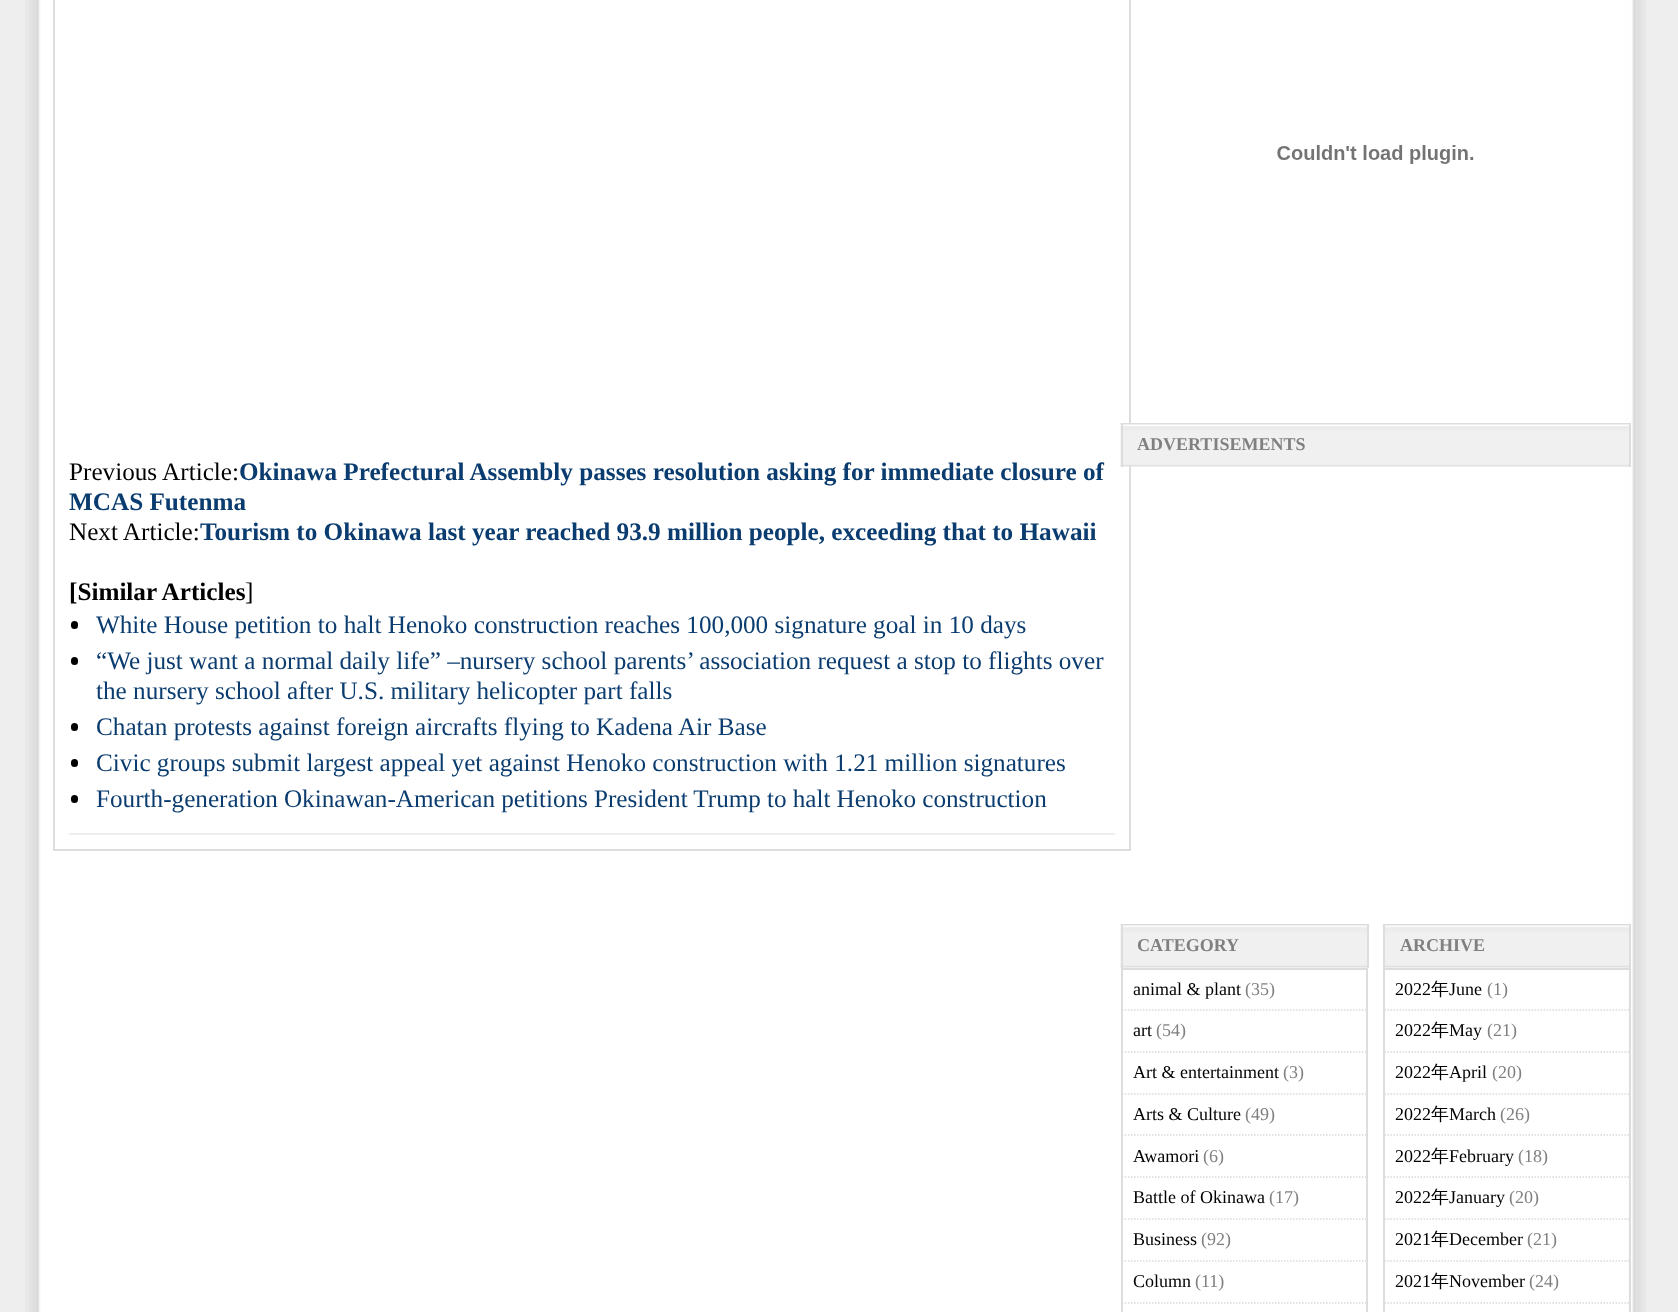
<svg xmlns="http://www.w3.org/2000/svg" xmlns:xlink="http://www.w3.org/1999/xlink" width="1678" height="1312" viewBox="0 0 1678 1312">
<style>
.cls-1{font:25.2px Liberation Serif;fill:#000000}
.cls-2{font:bold 25.2px Liberation Serif;fill:#0a3c6f}
.cls-3{font:bold 25.2px Liberation Serif;fill:#000000}
.cls-4{font:25.2px Liberation Serif;fill:#0a3c6f}
.cls-5{font:bold 18px Liberation Serif;fill:#808080}
.cls-6{font:18px Liberation Serif;fill:#000000}
.cls-7{font:18px Liberation Serif;fill:#808080}
.cls-8{font:500 18px WenQuanYi Zen Hei;fill:#000000}
</style>
<rect width="100%" height="100%" fill="#eeeeee"/>
<image xlink:href="image0.png" x="25" y="0" width="1621" height="1312"/>
<rect fill="none" stroke="#dddddd" stroke-width="2" x="54" y="-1" width="1076" height="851"/>
<rect fill="#000000" x="71" y="621" width="7" height="8" rx="3.5"/>
<rect fill="#000000" x="71" y="657" width="7" height="8" rx="3.5"/>
<rect fill="#000000" x="71" y="723" width="7" height="8" rx="3.5"/>
<rect fill="#000000" x="71" y="759" width="7" height="8" rx="3.5"/>
<rect fill="#000000" x="71" y="795" width="7" height="8" rx="3.5"/>
<rect fill="#eeeeee" x="69" y="833" width="1046" height="2"/>
<image xlink:href="image1.png" x="1277" y="145" width="197" height="19"/>
<image xlink:href="image2.png" x="1120" y="423" width="509" height="44"/>
<rect fill="#dddddd" x="1629" y="423" width="2" height="44"/>
<rect fill="#dddddd" x="1121" y="423" width="2" height="44"/>
<image xlink:href="image3.png" x="1120" y="924" width="247" height="44"/>
<rect fill="#dddddd" x="1367" y="924" width="2" height="44"/>
<rect fill="#dddddd" x="1121" y="924" width="2" height="44"/>
<rect fill="none" stroke="#dddddd" stroke-width="2" x="1122" y="969" width="245" height="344"/>
<path fill="none" stroke="#dadada" stroke-width="1.5" stroke-dasharray="1.5 1.5" d="M1122 1010H1366.5"/>
<path fill="none" stroke="#dadada" stroke-width="1.5" stroke-dasharray="1.5 1.5" d="M1122 1052H1366.5"/>
<path fill="none" stroke="#dadada" stroke-width="1.5" stroke-dasharray="1.5 1.5" d="M1122 1094H1366.5"/>
<path fill="none" stroke="#dadada" stroke-width="1.5" stroke-dasharray="1.5 1.5" d="M1122 1135H1366.5"/>
<path fill="none" stroke="#dadada" stroke-width="1.5" stroke-dasharray="1.5 1.5" d="M1122 1177H1366.5"/>
<path fill="none" stroke="#dadada" stroke-width="1.5" stroke-dasharray="1.5 1.5" d="M1122 1219H1366.5"/>
<path fill="none" stroke="#dadada" stroke-width="1.5" stroke-dasharray="1.5 1.5" d="M1122 1261H1366.5"/>
<path fill="none" stroke="#dadada" stroke-width="1.5" stroke-dasharray="1.5 1.5" d="M1122 1303H1366.5"/>
<image xlink:href="image4.png" x="1385" y="924" width="244" height="44"/>
<rect fill="#dddddd" x="1629" y="924" width="2" height="44"/>
<rect fill="#dddddd" x="1383" y="924" width="2" height="44"/>
<rect fill="none" stroke="#dddddd" stroke-width="2" x="1384" y="969" width="246" height="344"/>
<path fill="none" stroke="#dadada" stroke-width="1.5" stroke-dasharray="1.5 1.5" d="M1384.5 1010H1629"/>
<path fill="none" stroke="#dadada" stroke-width="1.5" stroke-dasharray="1.5 1.5" d="M1384.5 1052H1629"/>
<path fill="none" stroke="#dadada" stroke-width="1.5" stroke-dasharray="1.5 1.5" d="M1384.5 1094H1629"/>
<path fill="none" stroke="#dadada" stroke-width="1.5" stroke-dasharray="1.5 1.5" d="M1384.5 1135H1629"/>
<path fill="none" stroke="#dadada" stroke-width="1.5" stroke-dasharray="1.5 1.5" d="M1384.5 1177H1629"/>
<path fill="none" stroke="#dadada" stroke-width="1.5" stroke-dasharray="1.5 1.5" d="M1384.5 1219H1629"/>
<path fill="none" stroke="#dadada" stroke-width="1.5" stroke-dasharray="1.5 1.5" d="M1384.5 1261H1629"/>
<path fill="none" stroke="#dadada" stroke-width="1.5" stroke-dasharray="1.5 1.5" d="M1384.5 1303H1629"/>
<text class="cls-1" x="69" y="480">Previous Article:</text>
<text class="cls-2" x="239" y="480">Okinawa Prefectural Assembly passes resolution asking for immediate closure of</text>
<text class="cls-2" x="69" y="510">MCAS Futenma</text>
<text class="cls-1" x="69" y="540">Next Article:</text>
<text class="cls-2" x="200" y="540">Tourism to Okinawa last year reached 93.9 million people, exceeding that to Hawaii</text>
<text class="cls-3" x="69" y="600">[Similar Articles</text>
<text class="cls-1" x="245" y="600">]</text>
<text class="cls-4"><tspan x="96" y="633">White House petition to halt Henoko construction reaches 100,000 signature goal in 10 days</tspan><tspan x="96" y="669">“We just want a normal daily life” –nursery school parents’ association request a stop to flights over</tspan><tspan x="96" y="699">the nursery school after U.S. military helicopter part falls</tspan><tspan x="96" y="735">Chatan protests against foreign aircrafts flying to Kadena Air Base</tspan><tspan x="96" y="771">Civic groups submit largest appeal yet against Henoko construction with 1.21 million signatures</tspan><tspan x="96" y="807" word-spacing="-0.25">Fourth-generation Okinawan-American petitions President Trump to halt Henoko construction</tspan></text>
<text class="cls-5" x="1137" y="450">ADVERTISEMENTS</text>
<text class="cls-5" x="1137" y="951">CATEGORY</text>
<text class="cls-6" x="1133" y="995">animal &amp; plant</text>
<text class="cls-7" x="1245" y="995">(35)</text>
<text class="cls-6" x="1133" y="1036">art</text>
<text class="cls-7" x="1156" y="1036">(54)</text>
<text class="cls-6" x="1133" y="1078">Art &amp; entertainment</text>
<text class="cls-7" x="1283" y="1078">(3)</text>
<text class="cls-6" x="1133" y="1120">Arts &amp; Culture</text>
<text class="cls-7" x="1245" y="1120">(49)</text>
<text class="cls-6" x="1133" y="1162">Awamori</text>
<text class="cls-7" x="1203" y="1162">(6)</text>
<text class="cls-6" x="1133" y="1203">Battle of Okinawa</text>
<text class="cls-7" x="1269" y="1203">(17)</text>
<text class="cls-6" x="1133" y="1245">Business</text>
<text class="cls-7" x="1201" y="1245">(92)</text>
<text class="cls-6" x="1133" y="1287">Column</text>
<text class="cls-7" x="1195" y="1287">(11)</text>
<text class="cls-5" x="1400" y="951">ARCHIVE</text>
<text class="cls-6" x="1395" y="995">2022</text>
<text class="cls-8" x="1431" y="995">年</text>
<text class="cls-6" x="1449" y="995">June</text>
<text class="cls-7" x="1487" y="995">(1)</text>
<text class="cls-6" x="1395" y="1036">2022</text>
<text class="cls-8" x="1431" y="1036">年</text>
<text class="cls-6" x="1449" y="1036">May</text>
<text class="cls-7" x="1487" y="1036">(21)</text>
<text class="cls-6" x="1395" y="1078">2022</text>
<text class="cls-8" x="1431" y="1078">年</text>
<text class="cls-6" x="1449" y="1078">April</text>
<text class="cls-7" x="1492" y="1078">(20)</text>
<text class="cls-6" x="1395" y="1120">2022</text>
<text class="cls-8" x="1431" y="1120">年</text>
<text class="cls-6" x="1449" y="1120">March</text>
<text class="cls-7" x="1500" y="1120">(26)</text>
<text class="cls-6" x="1395" y="1162">2022</text>
<text class="cls-8" x="1431" y="1162">年</text>
<text class="cls-6" x="1449" y="1162">February</text>
<text class="cls-7" x="1518" y="1162">(18)</text>
<text class="cls-6" x="1395" y="1203">2022</text>
<text class="cls-8" x="1431" y="1203">年</text>
<text class="cls-6" x="1449" y="1203">January</text>
<text class="cls-7" x="1509" y="1203">(20)</text>
<text class="cls-6" x="1395" y="1245">2021</text>
<text class="cls-8" x="1431" y="1245">年</text>
<text class="cls-6" x="1449" y="1245">December</text>
<text class="cls-7" x="1527" y="1245">(21)</text>
<text class="cls-6" x="1395" y="1287">2021</text>
<text class="cls-8" x="1431" y="1287">年</text>
<text class="cls-6" x="1449" y="1287">November</text>
<text class="cls-7" x="1529" y="1287">(24)</text>
</svg>
